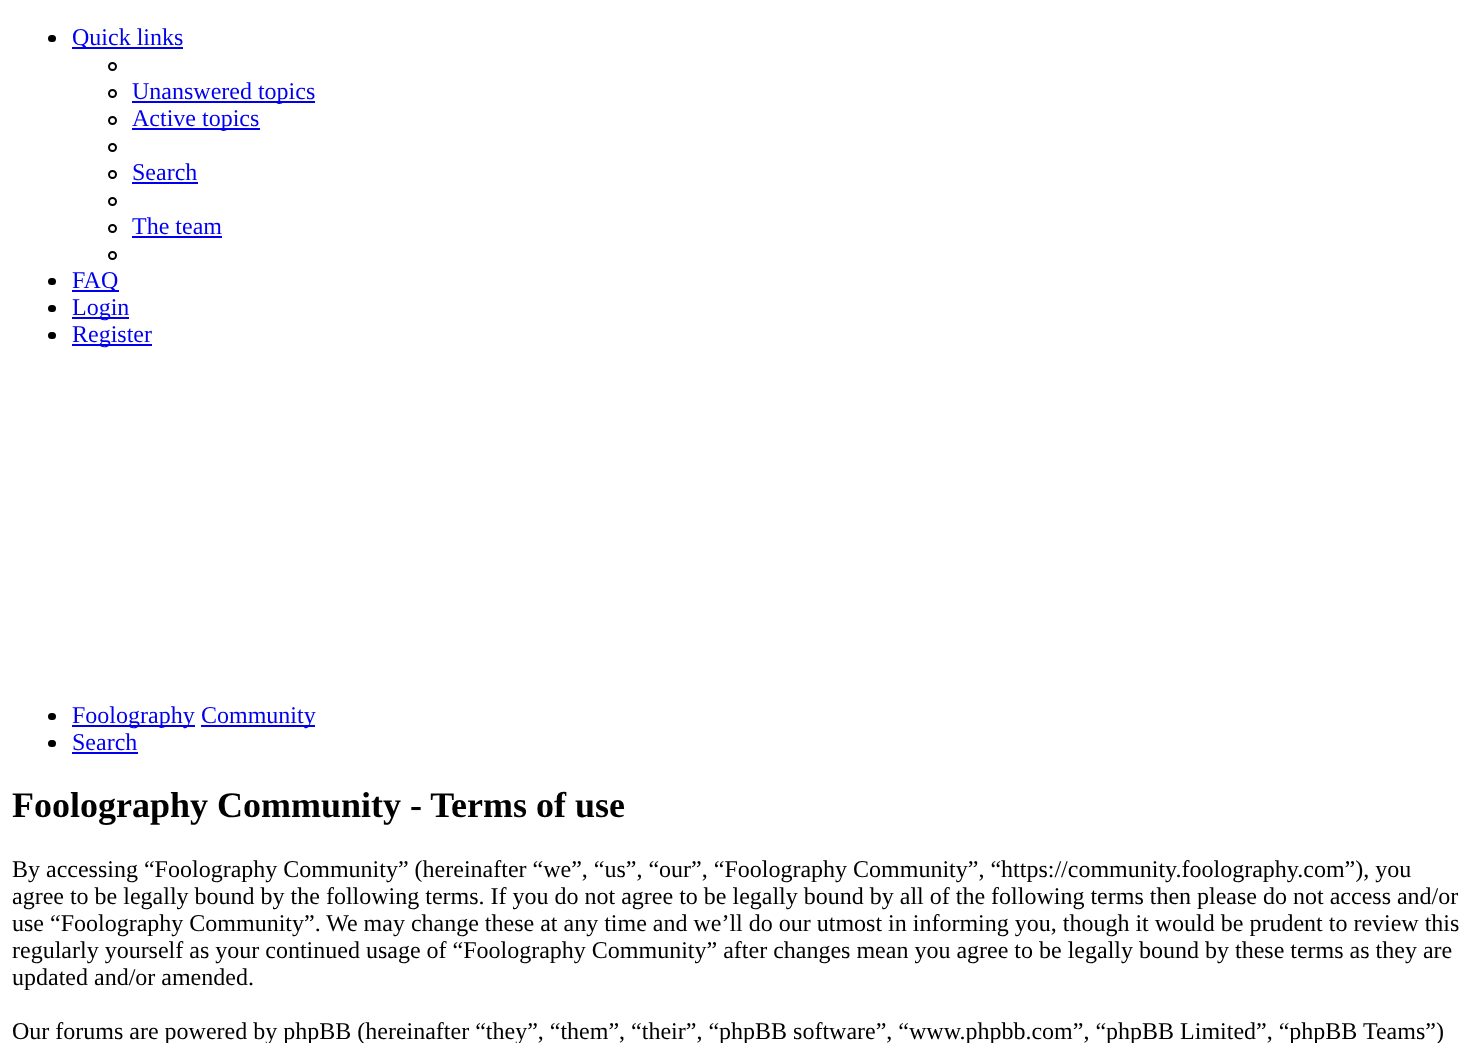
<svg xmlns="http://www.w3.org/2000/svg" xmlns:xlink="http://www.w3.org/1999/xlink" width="1474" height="1043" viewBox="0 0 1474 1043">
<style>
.cls-1{font:24px Liberation Serif;fill:#0000ee}
.cls-2{font:bold 36px Liberation Serif;fill:#000000}
.cls-3{font:24px Liberation Serif;fill:#000000}
</style>
<rect width="100%" height="100%" fill="#ffffff"/>
<rect fill="#000000" x="48" y="35" width="8" height="7" rx="3.5"/>
<rect fill="#0000ee" x="72" y="47" width="111" height="2"/>
<circle fill="none" stroke="#000000" stroke-width="2" cx="112.5" cy="66.5" r="3.5"/>
<circle fill="none" stroke="#000000" stroke-width="2" cx="112.5" cy="93.5" r="3.5"/>
<rect fill="#0000ee" x="132" y="101" width="183" height="2"/>
<circle fill="none" stroke="#000000" stroke-width="2" cx="112.5" cy="120.5" r="3.5"/>
<rect fill="#0000ee" x="132" y="128" width="128" height="2"/>
<circle fill="none" stroke="#000000" stroke-width="2" cx="112.5" cy="147.5" r="3.5"/>
<circle fill="none" stroke="#000000" stroke-width="2" cx="112.5" cy="174.5" r="3.5"/>
<rect fill="#0000ee" x="132" y="182" width="66" height="2"/>
<circle fill="none" stroke="#000000" stroke-width="2" cx="112.5" cy="201.5" r="3.5"/>
<circle fill="none" stroke="#000000" stroke-width="2" cx="112.5" cy="228.5" r="3.5"/>
<rect fill="#0000ee" x="132" y="236" width="90" height="2"/>
<circle fill="none" stroke="#000000" stroke-width="2" cx="112.5" cy="255.5" r="3.5"/>
<rect fill="#000000" x="48" y="278" width="8" height="7" rx="3.5"/>
<rect fill="#0000ee" x="72" y="290" width="47" height="2"/>
<rect fill="#000000" x="48" y="305" width="8" height="7" rx="3.5"/>
<rect fill="#0000ee" x="72" y="317" width="57" height="2"/>
<rect fill="#000000" x="48" y="332" width="8" height="7" rx="3.5"/>
<rect fill="#0000ee" x="72" y="344" width="80" height="2"/>
<rect fill="#000000" x="48" y="713" width="8" height="7" rx="3.5"/>
<rect fill="#0000ee" x="72" y="725" width="123" height="2"/>
<rect fill="#0000ee" x="201" y="725" width="114" height="2"/>
<rect fill="#000000" x="48" y="740" width="8" height="7" rx="3.5"/>
<rect fill="#0000ee" x="72" y="752" width="66" height="2"/>
<text class="cls-1" x="72" y="45">Quick links</text>
<text class="cls-1"><tspan x="132" y="99">Unanswered topics</tspan><tspan x="132" y="126">Active topics</tspan></text>
<text class="cls-1" x="132" y="180">Search</text>
<text class="cls-1" x="132" y="234">The team</text>
<text class="cls-1"><tspan x="72" y="288">FAQ</tspan><tspan x="72" y="315">Login</tspan><tspan x="72" y="342">Register</tspan></text>
<text class="cls-1" x="72" y="723">Foolography</text>
<text class="cls-1" x="201" y="723">Community</text>
<text class="cls-1" x="72" y="750">Search</text>
<text class="cls-2" x="12" y="817">Foolography Community - Terms of use</text>
<text class="cls-3"><tspan x="12" y="877">By accessing “Foolography Community” (hereinafter “we”, “us”, “our”, “Foolography Community”, “https://community.foolography.com”), you</tspan><tspan x="12" y="904">agree to be legally bound by the following terms. If you do not agree to be legally bound by all of the following terms then please do not access and/or</tspan><tspan x="12" y="931">use “Foolography Community”. We may change these at any time and we’ll do our utmost in informing you, though it would be prudent to review this</tspan><tspan x="12" y="958">regularly yourself as your continued usage of “Foolography Community” after changes mean you agree to be legally bound by these terms as they are</tspan><tspan x="12" y="985">updated and/or amended.</tspan></text>
<text class="cls-3" x="12" y="1039">Our forums are powered by phpBB (hereinafter “they”, “them”, “their”, “phpBB software”, “www.phpbb.com”, “phpBB Limited”, “phpBB Teams”)</text>
</svg>
